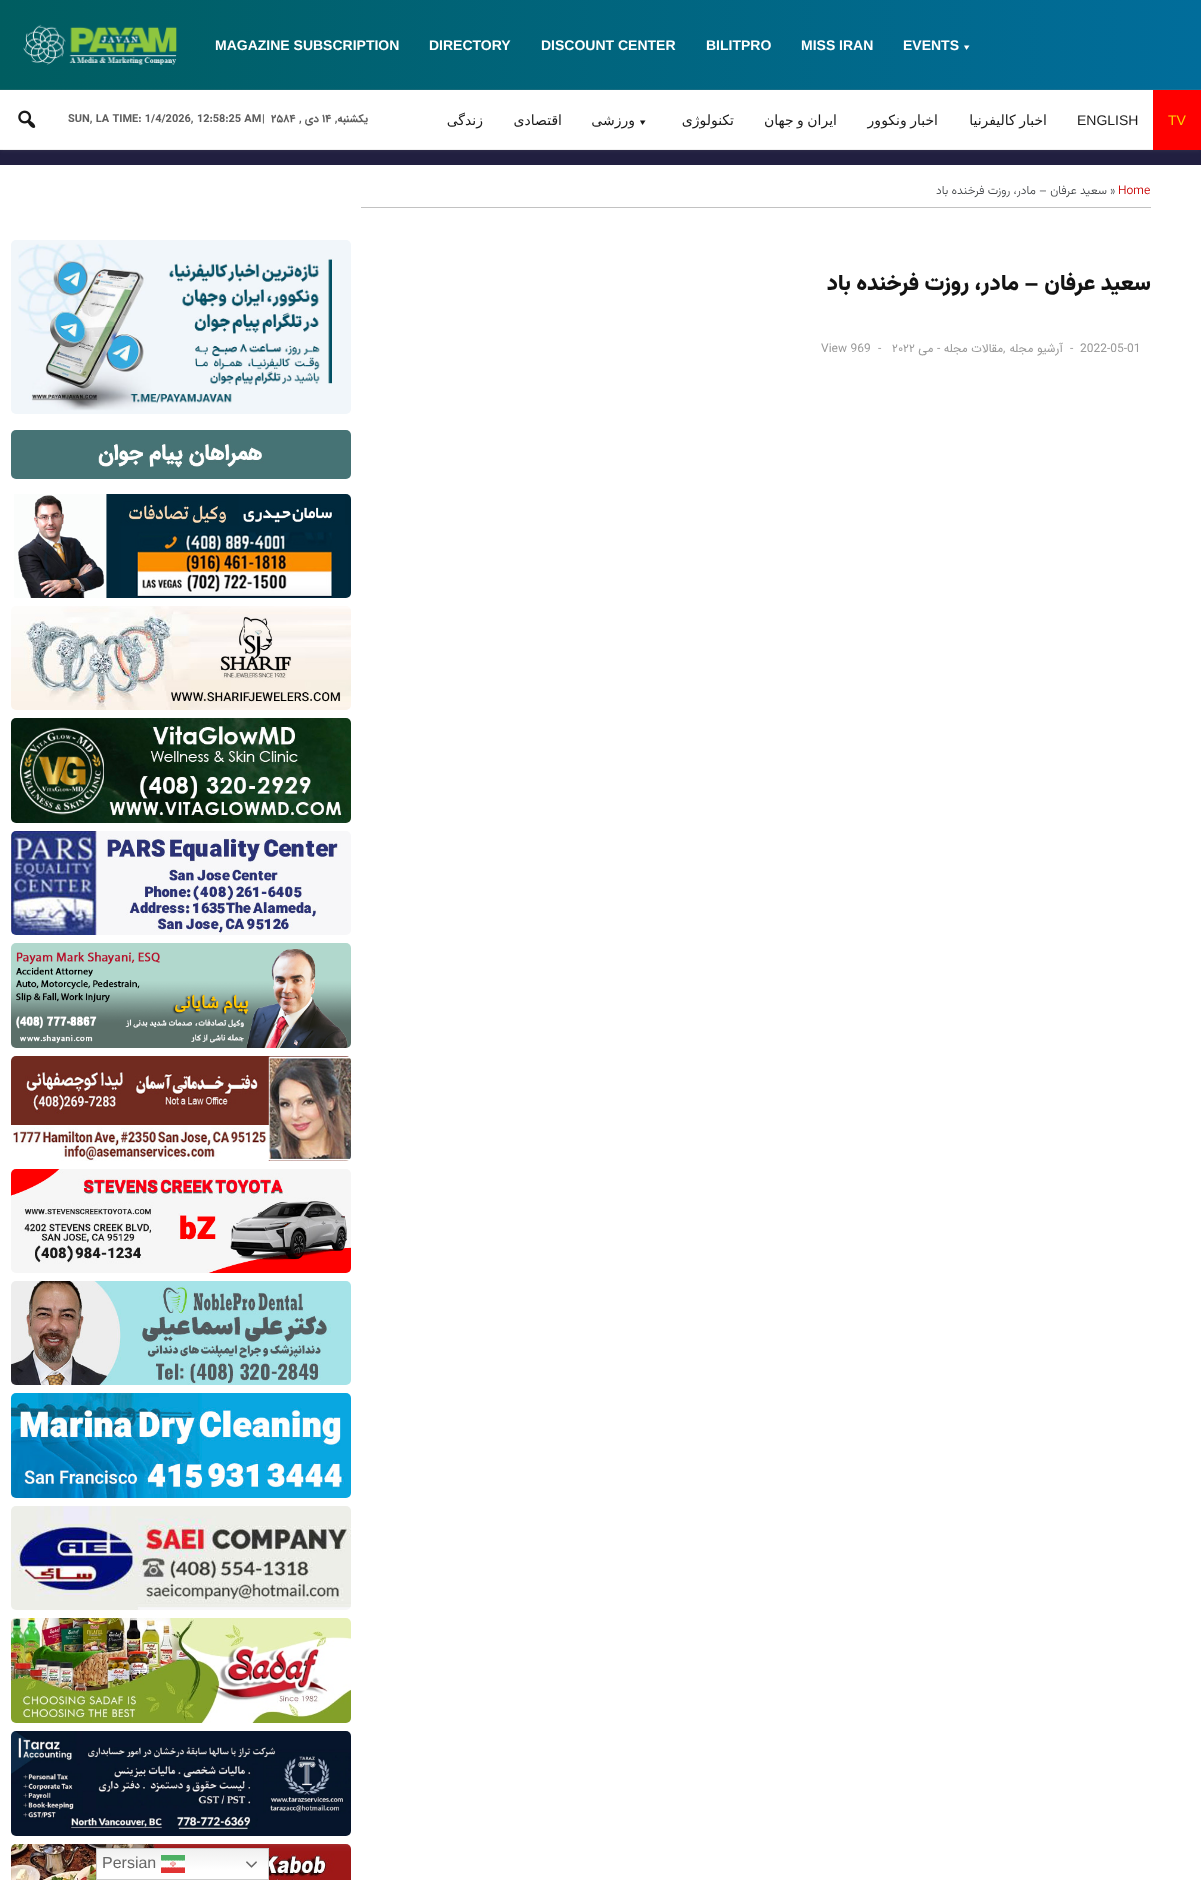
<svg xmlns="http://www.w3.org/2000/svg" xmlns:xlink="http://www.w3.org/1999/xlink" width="1201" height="1880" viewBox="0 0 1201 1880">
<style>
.cls-1{font:bold 14px Liberation Sans;fill:#ffffff}
.cls-2{font:14px Liberation Sans;fill:#ffd300}
.cls-3{font:14px Liberation Sans;fill:#191919}
.cls-4{font:14px DejaVu Sans;direction:rtl;fill:#191919}
.cls-5{font:bold 11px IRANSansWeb;direction:rtl;fill:#5e5e5e}
.cls-6{font:bold 11px IRANSansWeb;fill:#5e5e5e}
.cls-7{font:300 12px Vazirmatn;fill:#c80000}
.cls-8{font:300 12px Vazirmatn;fill:#424548}
.cls-9{font:300 12px Vazirmatn;direction:rtl;fill:#424548}
.cls-10{font:900 22px Vazirmatn;direction:rtl;fill:#131313}
.cls-11{font:12px IRANSansWeb;fill:#999999}
.cls-12{font:12px IRANSansWeb;direction:rtl;fill:#999999}
.cls-13{font:16px Liberation Sans;fill:#666666}
</style>
<defs>
<linearGradient id="g1" gradientUnits="userSpaceOnUse" x1="1201" y1="45" x2="0" y2="45"><stop offset="0" stop-color="#016d9b"/><stop offset="1" stop-color="#005d60"/></linearGradient>
<linearGradient id="g2" gradientUnits="userSpaceOnUse" x1="1201" y1="45" x2="0" y2="45"><stop offset="0" stop-color="#17739a"/><stop offset="1" stop-color="#176668"/></linearGradient>
<linearGradient id="g3" gradientUnits="userSpaceOnUse" x1="183" y1="1848" x2="183" y2="1880"><stop offset="0" stop-color="#efefef"/><stop offset="0.7" stop-color="#ffffff"/></linearGradient>
</defs>
<rect width="100%" height="100%" fill="#ffffff"/>
<rect fill="#211f40" x="0" y="150" width="1201" height="15"/>
<rect fill="#808080" fill-opacity="0.2" filter="blur(2.5px)" x="0" y="0" width="1201" height="150"/>
<rect fill="url(#g1)" x="0" y="0" width="1201" height="89"/>
<rect fill="url(#g2)" x="0" y="89" width="1201" height="1"/>
<path fill="#ffffff" d="M969.5 45.5L966.5 50L964 45.5Z"/>
<image xlink:href="image0.png" x="23" y="24" width="154" height="41"/>
<rect fill="#ffffff" x="0" y="90" width="1153" height="59"/>
<rect fill="#efefef" x="0" y="149" width="3" height="1"/>
<rect fill="#ff0000" x="1153" y="90" width="48" height="60"/>
<path fill="#191919" d="M645.5 120.5L642.5 125L640 120.5Z"/>
<image xlink:href="image1.png" x="18" y="110" width="18" height="18"/>
<rect fill="#c2c2c2" x="361" y="207" width="790" height="1"/>
<image xlink:href="image2.png" x="11" y="240" width="340" height="174"/>
<image xlink:href="image3.png" x="11" y="430" width="340" height="49"/>
<image xlink:href="image4.png" x="14" y="494" width="337" height="104"/>
<image xlink:href="image5.png" x="11" y="606" width="340" height="104"/>
<image xlink:href="image6.png" x="11" y="718" width="340" height="105"/>
<image xlink:href="image7.png" x="11" y="831" width="340" height="104"/>
<image xlink:href="image8.png" x="11" y="943" width="340" height="105"/>
<image xlink:href="image9.png" x="11" y="1056" width="340" height="105"/>
<image xlink:href="image10.png" x="11" y="1169" width="340" height="104"/>
<image xlink:href="image11.png" x="11" y="1281" width="340" height="104"/>
<image xlink:href="image12.png" x="11" y="1393" width="340" height="105"/>
<image xlink:href="image13.png" x="11" y="1506" width="340" height="104"/>
<image xlink:href="image14.png" x="11" y="1618" width="340" height="105"/>
<image xlink:href="image15.png" x="11" y="1731" width="340" height="105"/>
<image xlink:href="image16.png" x="11" y="1844" width="340" height="36"/>
<rect fill="url(#g3)" x="97" y="1849" width="171" height="30"/>
<rect fill="none" stroke="#cccccc" x="96.5" y="1848.5" width="172" height="31"/>
<image xlink:href="image17.png" x="246" y="1861" width="11" height="7"/>
<image xlink:href="image18.png" x="161" y="1855" width="24" height="18"/>
<text class="cls-1" x="903" y="50">EVENTS</text>
<text class="cls-1" x="801" y="50">MISS IRAN</text>
<text class="cls-1" x="706" y="50">BILITPRO</text>
<text class="cls-1" x="541" y="50">DISCOUNT CENTER</text>
<text class="cls-1" x="429" y="50">DIRECTORY</text>
<text class="cls-1" x="215" y="50">MAGAZINE SUBSCRIPTION</text>
<text class="cls-2" x="1168" y="125">TV</text>
<text class="cls-3" x="1077" y="125">ENGLISH</text>
<text class="cls-4" x="1047" y="125" word-spacing="-1">اخبار کالیفرنیا</text>
<text class="cls-4" x="938" y="125" word-spacing="-1">اخبار ونکوور</text>
<text class="cls-4" x="837" y="125" word-spacing="-1">ایران و جهان</text>
<text class="cls-4" x="734" y="125">تکنولوژی</text>
<text class="cls-4" x="635" y="125">ورزشی</text>
<text class="cls-4" x="562" y="125">اقتصادی</text>
<text class="cls-4" x="483" y="125">زندگی</text>
<text class="cls-5" x="368" y="122">یکشنبه,</text>
<text class="cls-6" x="322" y="122">۱۴</text>
<text class="cls-5" x="319" y="122">دی ,</text>
<text class="cls-6" x="271" y="122">۲۵۸۴</text>
<text class="cls-6" x="262" y="122">|</text>
<text class="cls-6" x="68" y="122">SUN, LA TIME: 1/4/2026, 12:58:25 AM</text>
<text class="cls-7" x="1118" y="194">Home</text>
<text class="cls-8" x="1110" y="194">»</text>
<text class="cls-9" x="1107" y="194">سعید عرفان – مادر، روزت فرخنده باد</text>
<text class="cls-10" x="1151" y="290">سعید عرفان – مادر، روزت فرخنده باد</text>
<text class="cls-11" x="1080" y="352">2022-05-01</text>
<text class="cls-11" x="1070" y="352">-</text>
<text class="cls-12" x="1063" y="352">آرشیو مجله</text>
<text class="cls-12" x="1003" y="352">مقالات مجله - می</text>
<text class="cls-11" x="892" y="352">۲۰۲۲</text>
<text class="cls-11" x="878" y="352">-</text>
<text class="cls-11" x="1003" y="352">,</text>
<text class="cls-11" x="821" y="352">View 969</text>
<text class="cls-13" x="102" y="1868">Persian</text>
</svg>
